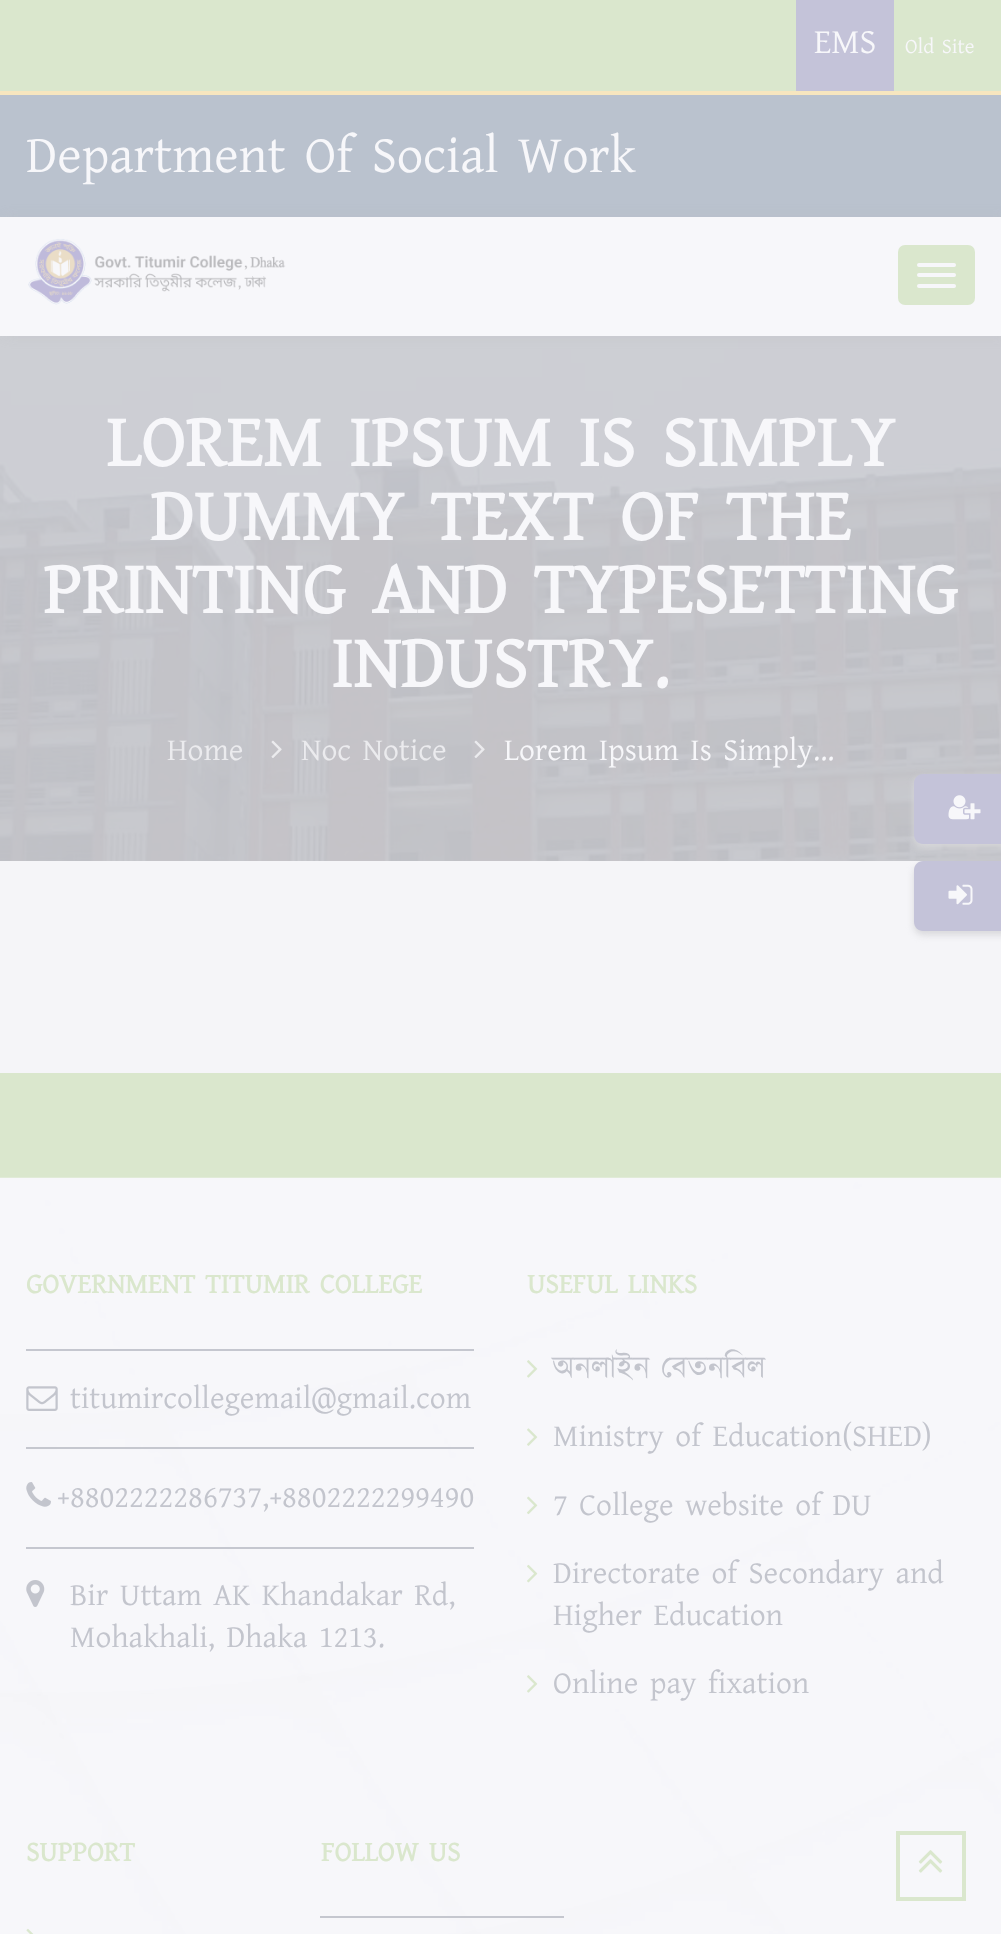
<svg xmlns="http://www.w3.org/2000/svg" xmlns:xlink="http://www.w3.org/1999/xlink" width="1001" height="1934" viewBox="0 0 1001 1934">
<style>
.cls-1{font:35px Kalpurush;fill:#f7f7fa}
.cls-2{font:21px Kalpurush;fill:#f7f7fa}
.cls-3{font:52.5px Kalpurush;fill:#f7f7fa}
.cls-4{font:bold 73.5px Kalpurush;fill:#f7f7fa}
.cls-5{font:31.5px Kalpurush;fill:#ebebee}
.cls-6{font:31.5px Kalpurush;fill:#f7f7fa}
.cls-7{font:bold 28px Kalpurush;fill:#dae7cd}
.cls-8{font:31.5px Kalpurush;fill:#c3c5cd}
</style>
<rect width="100%" height="100%" fill="#f5f5f8"/>
<rect fill="#dae7cd" x="0" y="0" width="1001" height="91"/>
<rect fill="#c4c3d9" x="796" y="0" width="98" height="91"/>
<rect fill="#bac2ce" x="0" y="95" width="1001" height="122"/>
<rect fill="#f7e6bf" x="0" y="91" width="1001" height="4"/>
<image xlink:href="image3.png" x="0" y="336" width="1001" height="525"/>
<rect fill="#bababd" fill-opacity="0.3" filter="blur(6px)" x="5" y="217" width="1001" height="119"/>
<rect fill="#f7f7fa" x="0" y="217" width="1001" height="119"/>
<image xlink:href="image0.png" x="28" y="238" width="258" height="67"/>
<rect fill="#dae7cd" x="898" y="245" width="77" height="60" rx="7"/>
<rect fill="#f7f7fa" x="917" y="263" width="39" height="4" rx="2"/>
<rect fill="#f7f7fa" x="917" y="273" width="39" height="4" rx="2"/>
<rect fill="#f7f7fa" x="917" y="284" width="39" height="4" rx="2"/>
<rect fill="#d8d8db" filter="blur(3.5px)" x="914" y="777" width="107" height="70" rx="9"/>
<path fill="#c4c3d9" d="M923 774H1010V844H923C918 844 914 840 914 835V783C914 778 918 774 923 774Z"/>
<image xlink:href="image1.png" x="948" y="795" width="33" height="25"/>
<rect fill="#d8d8db" filter="blur(3.5px)" x="914" y="865" width="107" height="70" rx="9"/>
<path fill="#c4c3d9" d="M923 861H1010V931H923C918 931 914 927 914 922V870C914 865 918 861 923 861Z"/>
<image xlink:href="image2.png" x="948" y="884" width="25" height="21"/>
<image xlink:href="image4.png" x="271" y="740" width="11" height="19"/>
<image xlink:href="image5.png" x="474" y="740" width="11" height="19"/>
<rect fill="#dae7cd" x="0" y="1073" width="1001" height="105"/>
<image xlink:href="image7.png" x="0" y="1177" width="1001" height="757"/>
<rect fill="none" stroke="#dae7cd" stroke-width="4" x="898" y="1833" width="66" height="66"/>
<image xlink:href="image6.png" x="918" y="1850" width="25" height="23"/>
<rect fill="#c5c7cf" x="26" y="1349" width="448" height="2"/>
<image xlink:href="image8.png" x="26" y="1386" width="32" height="25"/>
<rect fill="#c5c7cf" x="26" y="1447" width="448" height="2"/>
<image xlink:href="image9.png" x="26" y="1482" width="25" height="25"/>
<rect fill="#c5c7cf" x="26" y="1547" width="448" height="2"/>
<image xlink:href="image10.png" x="26" y="1580" width="19" height="27"/>
<image xlink:href="image11.png" x="527" y="1360" width="11" height="18"/>
<image xlink:href="image12.png" x="527" y="1428" width="11" height="18"/>
<image xlink:href="image13.png" x="527" y="1496" width="11" height="19"/>
<image xlink:href="image14.png" x="527" y="1564" width="11" height="19"/>
<image xlink:href="image15.png" x="527" y="1675" width="11" height="18"/>
<image xlink:href="image16.png" x="26" y="1928" width="8" height="6"/>
<rect fill="#c5c7cf" x="320" y="1916" width="244" height="2"/>
<text class="cls-1" x="814" y="53">EMS</text>
<text class="cls-2" x="905" y="53">Old Site</text>
<text class="cls-3" x="26" y="172">Department Of Social Work</text>
<text class="cls-4" x="106" y="466">LOREM IPSUM IS SIMPLY</text>
<text class="cls-4" x="150" y="540">DUMMY TEXT OF THE</text>
<text class="cls-4" x="43" y="613">PRINTING AND TYPESETTING</text>
<text class="cls-4" x="331" y="687">INDUSTRY.</text>
<text class="cls-5" x="167" y="760">Home</text>
<text class="cls-5" x="301" y="760">Noc Notice</text>
<text class="cls-6" x="504" y="760">Lorem Ipsum Is Simply...</text>
<text class="cls-7" x="26" y="1293">GOVERNMENT TITUMIR COLLEGE</text>
<text class="cls-8" x="70" y="1408">titumircollegemail@gmail.com</text>
<text class="cls-8" x="57" y="1507">+8802222286737,+8802222299490</text>
<text class="cls-8"><tspan x="70" y="1605">Bir Uttam AK Khandakar Rd,</tspan><tspan x="70" y="1647">Mohakhali, Dhaka 1213.</tspan></text>
<text class="cls-7" x="527" y="1293">USEFUL LINKS</text>
<text class="cls-8" x="553" y="1378">অনলাইন বেতনবিল</text>
<text class="cls-8" x="553" y="1446">Ministry of Education(SHED)</text>
<text class="cls-8" x="553" y="1515">7 College website of DU</text>
<text class="cls-8"><tspan x="553" y="1583">Directorate of Secondary and</tspan><tspan x="553" y="1625">Higher Education</tspan></text>
<text class="cls-8" x="553" y="1693">Online pay fixation</text>
<text class="cls-7" x="26" y="1861">SUPPORT</text>
<text class="cls-7" x="321" y="1861">FOLLOW US</text>
</svg>
